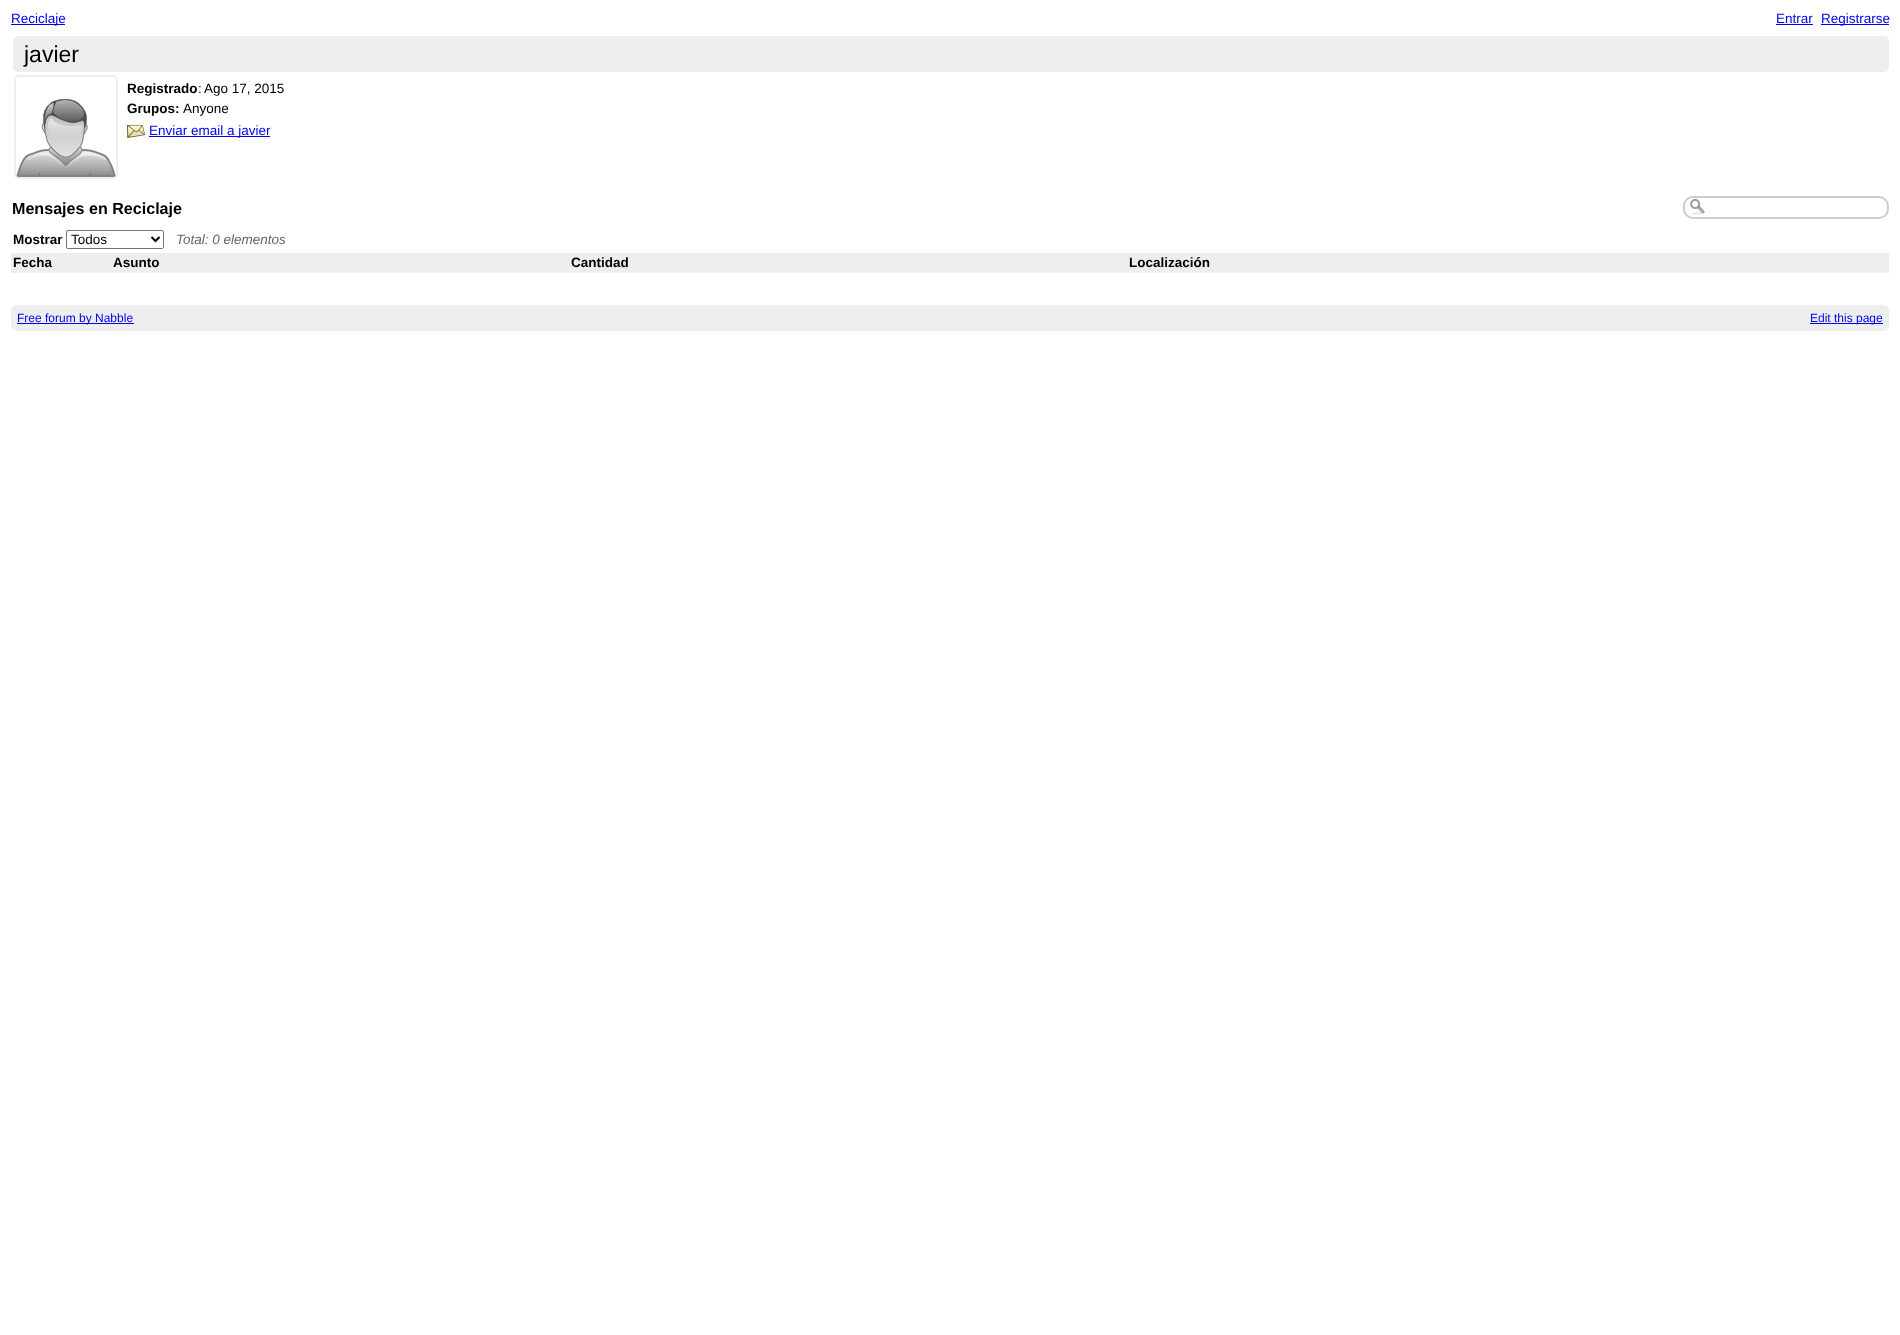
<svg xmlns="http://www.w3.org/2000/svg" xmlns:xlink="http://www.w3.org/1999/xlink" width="1900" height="1335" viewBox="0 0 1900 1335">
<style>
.cls-1{font:13.5px Liberation Sans;fill:#0000ee}
.cls-2{font:23px Liberation Sans;fill:#000000}
.cls-3{font:bold 13.5px Liberation Sans;fill:#000000}
.cls-4{font:13.5px Liberation Sans;fill:#000000}
.cls-5{font:bold 16.1px Liberation Sans;fill:#000000}
.cls-6{font:italic 13.5px Liberation Sans;fill:#666666}
.cls-7{font:12px Liberation Sans;fill:#0000ee}
</style>
<rect width="100%" height="100%" fill="#ffffff"/>
<rect fill="#0000ee" x="11" y="24" width="54" height="1"/>
<rect fill="#0000ee" x="1776" y="24" width="37" height="1"/>
<rect fill="#0000ee" x="1821" y="24" width="68" height="1"/>
<rect fill="#eeeeee" x="13" y="36" width="1876" height="36" rx="5"/>
<rect fill="none" stroke="#eeeeee" stroke-width="2" x="15" y="76" width="102" height="102" rx="4"/>
<image xlink:href="image0.png" x="16" y="99" width="100" height="78"/>
<image xlink:href="image1.png" x="127" y="125" width="18" height="13"/>
<rect fill="#0000ee" x="149" y="136" width="121" height="1"/>
<image xlink:href="image2.png" x="1690" y="199" width="15" height="16"/>
<rect fill="none" stroke="#cccccc" stroke-width="2" x="1684" y="197" width="204" height="21" rx="9"/>
<rect fill="none" stroke="#767676" x="66.5" y="230.5" width="97" height="18" rx="1.5"/>
<path fill="none" stroke="#000000" stroke-width="2" d="M151.5 237L155.5 241L159.5 237"/>
<rect fill="#eeeeee" x="11" y="253" width="1878" height="20"/>
<rect fill="#eeeeee" x="11" y="305" width="1878" height="26" rx="6"/>
<rect fill="#0000ee" x="17" y="323" width="117" height="1"/>
<rect fill="#0000ee" x="1810" y="323" width="73" height="1"/>
<text class="cls-1" x="11" y="23">Reciclaje</text>
<text class="cls-1" x="1776" y="23">Entrar</text>
<text class="cls-1" x="1821" y="23">Registrarse</text>
<text class="cls-2" x="24" y="62">javier</text>
<text class="cls-3" x="127" y="93">Registrado</text>
<text class="cls-4" x="198" y="93">:</text>
<text class="cls-4" x="204" y="93">Ago 17, 2015</text>
<text class="cls-3" x="127" y="113">Grupos:</text>
<text class="cls-4" x="183" y="113">Anyone</text>
<text class="cls-1" x="149" y="135">Enviar email a javier</text>
<text class="cls-5" x="12" y="214">Mensajes en Reciclaje</text>
<text class="cls-3" x="13" y="244">Mostrar</text>
<text class="cls-4" x="71" y="244">Todos</text>
<text class="cls-6" x="176" y="244">Total: 0 elementos</text>
<text class="cls-3" x="13" y="267">Fecha</text>
<text class="cls-3" x="113" y="267">Asunto</text>
<text class="cls-3" x="571" y="267">Cantidad</text>
<text class="cls-3" x="1129" y="267">Localización</text>
<text class="cls-7" x="17" y="322">Free forum by Nabble</text>
<text class="cls-7" x="1810" y="322">Edit this page</text>
</svg>
